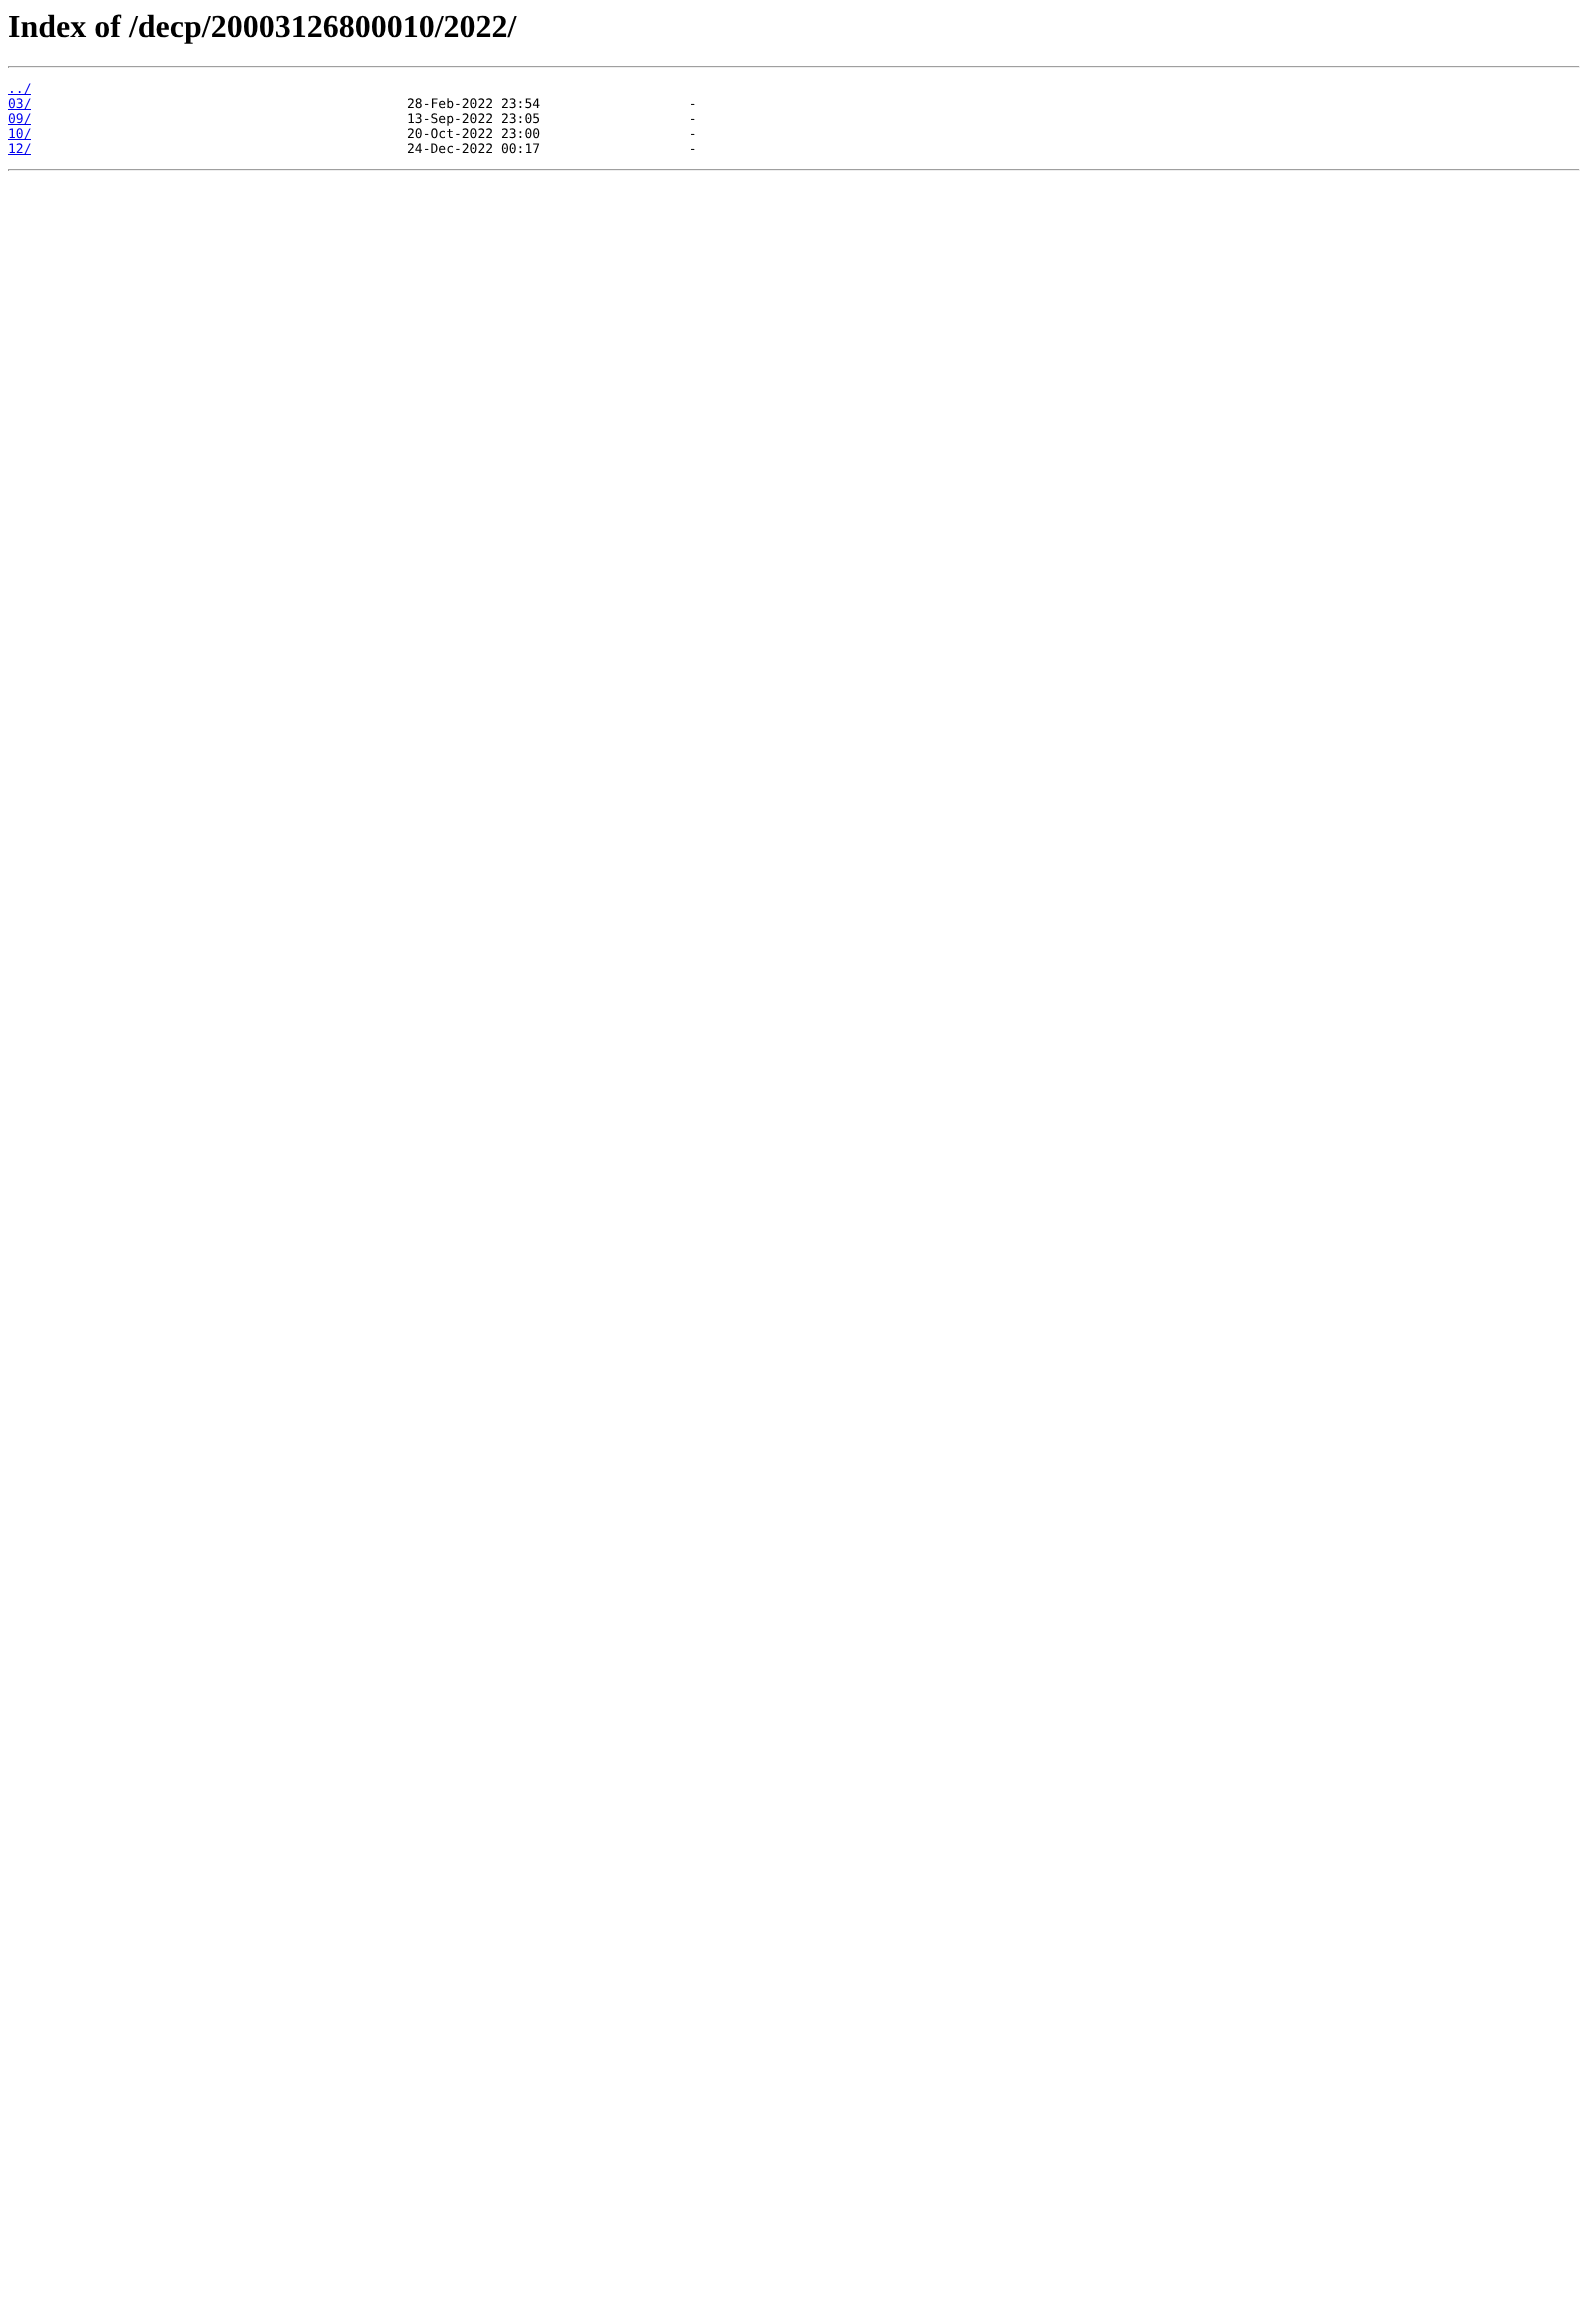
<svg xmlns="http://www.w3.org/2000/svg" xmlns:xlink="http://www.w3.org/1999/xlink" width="1588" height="2319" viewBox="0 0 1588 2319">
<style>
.cls-1{font:bold 32px Liberation Serif;fill:#000000}
.cls-2{font:13px DejaVu Sans Mono;fill:#0000ee}
.cls-3{font:13px DejaVu Sans Mono;fill:#000000}
</style>
<rect width="100%" height="100%" fill="#ffffff"/>
<rect fill="#9f9f9f" x="8" y="66" width="1572" height="1"/>
<rect fill="#eeeeee" x="1579" y="66" width="1" height="2"/>
<rect fill="#eeeeee" x="8" y="67" width="1572" height="1"/>
<rect fill="#9f9f9f" x="8" y="66" width="1" height="2"/>
<rect fill="#0000ee" x="8" y="94" width="23" height="1"/>
<rect fill="#0000ee" x="8" y="109" width="23" height="1"/>
<rect fill="#0000ee" x="8" y="124" width="23" height="1"/>
<rect fill="#0000ee" x="8" y="139" width="23" height="1"/>
<rect fill="#0000ee" x="8" y="154" width="23" height="1"/>
<rect fill="#9f9f9f" x="8" y="169" width="1572" height="1"/>
<rect fill="#eeeeee" x="1579" y="169" width="1" height="2"/>
<rect fill="#eeeeee" x="8" y="170" width="1572" height="1"/>
<rect fill="#9f9f9f" x="8" y="169" width="1" height="2"/>
<text class="cls-1" x="8" y="37">Index of /decp/20003126800010/2022/</text>
<text class="cls-2"><tspan x="8" y="93">../</tspan><tspan x="8" y="108">03/</tspan></text>
<text class="cls-3" xml:space="preserve" x="407" y="108">28-Feb-2022 23:54                   -</text>
<text class="cls-2" x="8" y="123">09/</text>
<text class="cls-3" xml:space="preserve" x="407" y="123">13-Sep-2022 23:05                   -</text>
<text class="cls-2" x="8" y="138">10/</text>
<text class="cls-3" xml:space="preserve" x="407" y="138">20-Oct-2022 23:00                   -</text>
<text class="cls-2" x="8" y="153">12/</text>
<text class="cls-3" xml:space="preserve" x="407" y="153">24-Dec-2022 00:17                   -</text>
</svg>
